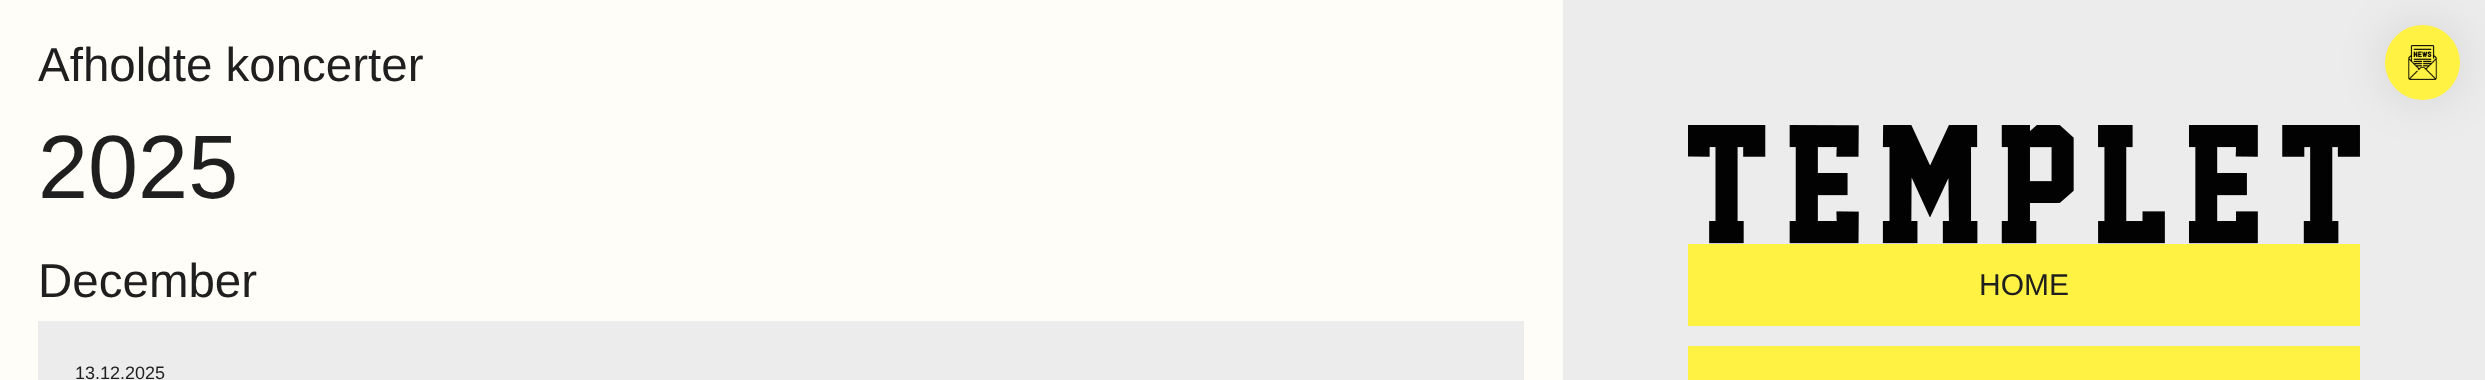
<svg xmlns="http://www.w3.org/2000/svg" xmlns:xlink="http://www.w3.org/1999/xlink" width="2485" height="380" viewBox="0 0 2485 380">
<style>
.cls-1{font:47.5px Liberation Sans;fill:#1f1f1f}
.cls-2{font:90px Liberation Sans;fill:#1f1f1f}
.cls-3{font:18px Liberation Sans;fill:#1f1f1f}
.cls-4{font:30px Liberation Sans;fill:#1f1f1f}
</style>
<rect width="100%" height="100%" fill="#fffdf7"/>
<rect fill="#ececec" x="38" y="321" width="1486" height="59"/>
<rect fill="#ececec" x="1563" y="0" width="922" height="380"/>
<image xlink:href="image0.png" x="1688" y="125" width="672" height="119"/>
<rect fill="#000000" fill-opacity="0.1" filter="blur(25px)" x="2385" y="25" width="75" height="75" rx="37.5"/>
<circle fill="#fff242" cx="2422.5" cy="62.5" r="37.5"/>
<image xlink:href="image1.png" x="2408" y="45" width="30" height="35"/>
<rect fill="#fff242" x="1688" y="244" width="672" height="82"/>
<rect fill="#fff242" x="1688" y="346" width="672" height="34"/>
<text class="cls-1" x="38" y="81">Afholdte koncerter</text>
<text class="cls-2" x="38" y="198">2025</text>
<text class="cls-1" x="38" y="297">December</text>
<text class="cls-3" x="75" y="379">13.12.2025</text>
<text class="cls-4" x="1979" y="295">HOME</text>
</svg>
